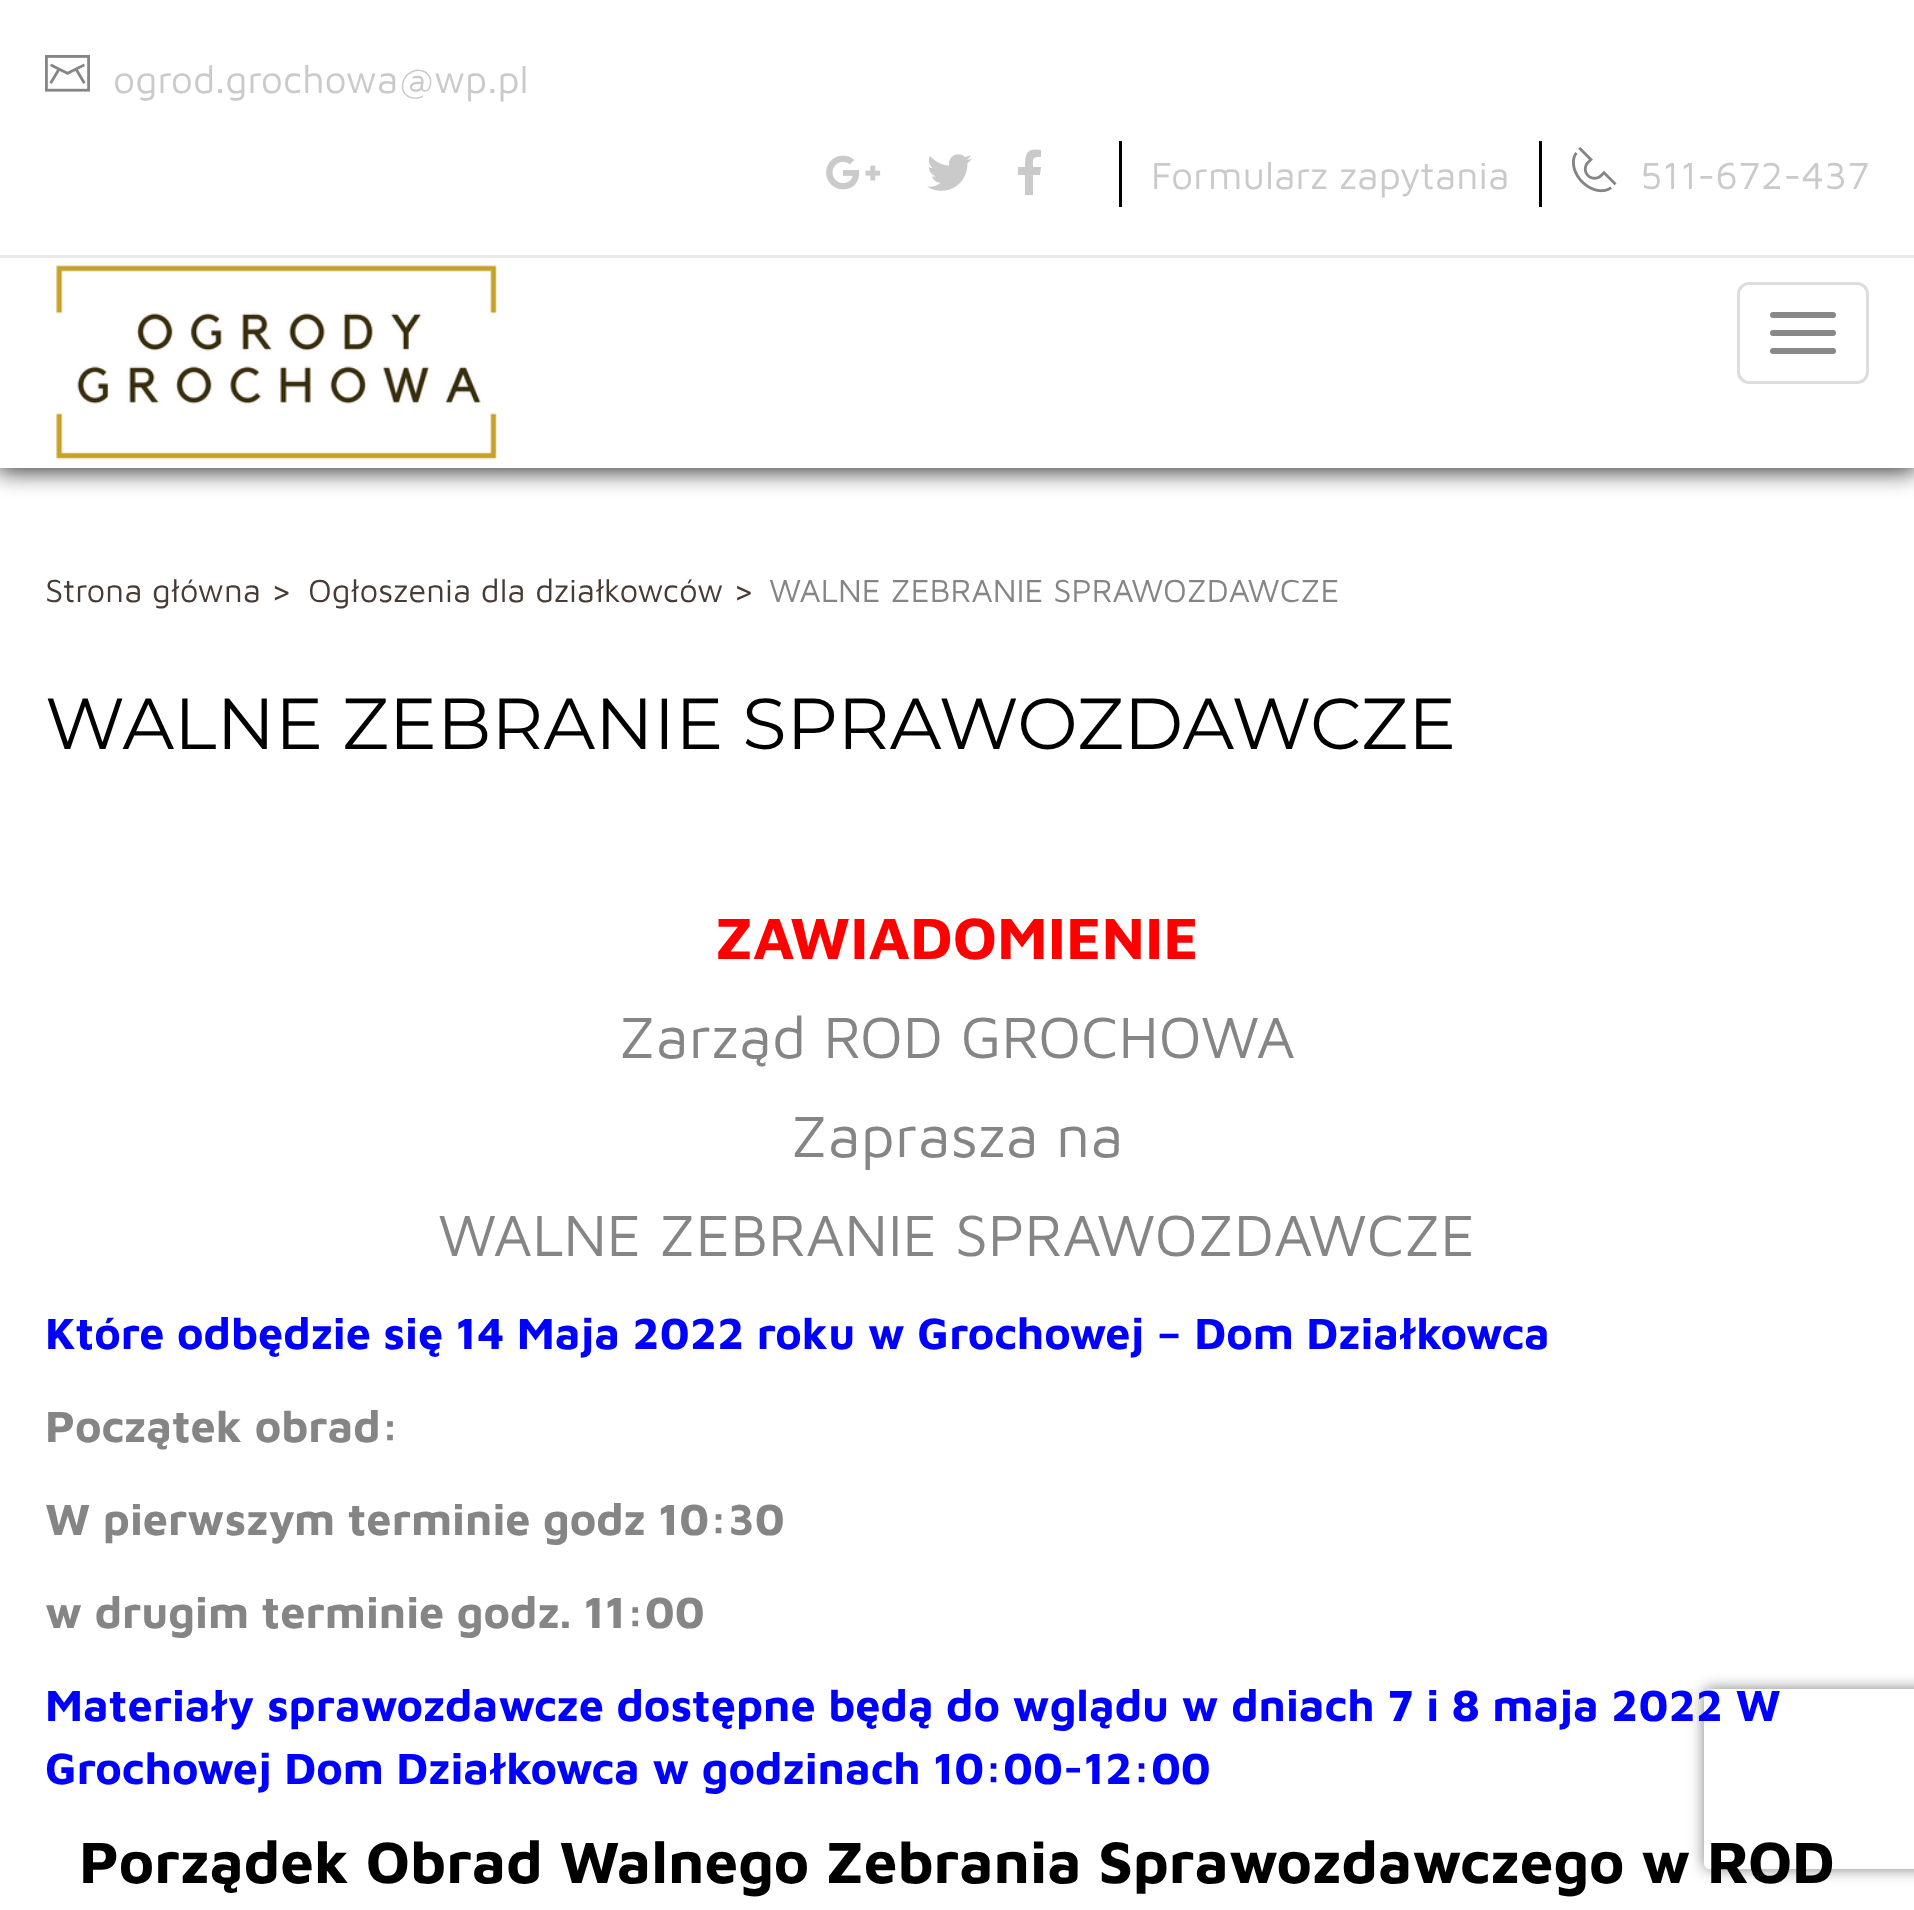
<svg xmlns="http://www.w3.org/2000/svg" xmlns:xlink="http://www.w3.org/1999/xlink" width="1914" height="1910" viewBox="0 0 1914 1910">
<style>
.cls-1{font:39px Maven Pro;fill:#cacaca}
.cls-2{font:33px Maven Pro;fill:#483b33}
.cls-3{font:33px Maven Pro;fill:#858585}
.cls-4{font:72px Montserrat;fill:#000000}
.cls-5{font:bold 60px Maven Pro;fill:#ff0000}
.cls-6{font:60px Maven Pro;fill:#858585}
.cls-7{font:bold 45px Maven Pro;fill:#0000ff}
.cls-8{font:bold 45px Maven Pro;fill:#858585}
.cls-9{font:bold 60px Maven Pro;fill:#000000}
</style>
<defs>
<clipPath id="clip1"><path d="M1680 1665H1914V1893H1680ZM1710 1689H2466C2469.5 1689 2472 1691.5 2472 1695V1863C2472 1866.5 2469.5 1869 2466 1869H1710C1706.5 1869 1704 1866.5 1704 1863V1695C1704 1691.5 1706.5 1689 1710 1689Z" clip-rule="evenodd"/></clipPath>
</defs>
<rect width="100%" height="100%" fill="#ffffff"/>
<rect fill="#000000" fill-opacity="0.82" filter="blur(12px)" x="-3" y="-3" width="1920" height="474"/>
<rect fill="#ffffff" x="0" y="0" width="1914" height="468"/>
<rect fill="#ebe9e5" x="0" y="255" width="1914" height="3"/>
<image xlink:href="image0.png" x="45" y="55" width="45" height="37"/>
<image xlink:href="image1.png" x="826" y="155" width="55" height="35"/>
<image xlink:href="image2.png" x="927" y="154" width="45" height="37"/>
<path fill="#cacaca" d="M1025 195V175H1018V167H1025C1025 153 1027 148 1041 150V157C1032 157 1033 158 1033 167H1041L1040 175H1033V195"/>
<rect fill="#000000" x="1119" y="141" width="3" height="66"/>
<rect fill="#000000" x="1539" y="141" width="3" height="66"/>
<image xlink:href="image3.png" x="1571" y="147" width="46" height="46"/>
<image xlink:href="image4.png" x="56" y="265" width="441" height="195"/>
<rect fill="none" stroke="#dddddd" stroke-width="3" x="1738.5" y="283.5" width="129" height="99" rx="10.5"/>
<rect fill="#888888" x="1770" y="312" width="66" height="6" rx="3"/>
<rect fill="#888888" x="1770" y="330" width="66" height="6" rx="3"/>
<rect fill="#888888" x="1770" y="348" width="66" height="6" rx="3"/>
<g clip-path="url(#clip1)">
<rect fill="#808080" filter="blur(7.5px)" x="1704" y="1689" width="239" height="180" rx="6"/>
</g>
<text class="cls-1" x="113" y="93">ogrod.grochowa@wp.pl</text>
<text class="cls-1" x="1151" y="189">Formularz zapytania</text>
<text class="cls-1" x="1640" y="189">511-672-437</text>
<text class="cls-2" x="45" y="602">Strona główna &gt;</text>
<text class="cls-2" x="308" y="602">Ogłoszenia dla działkowców &gt;</text>
<text class="cls-3" x="769" y="602">WALNE ZEBRANIE SPRAWOZDAWCZE</text>
<text class="cls-4" x="45" y="749">WALNE ZEBRANIE SPRAWOZDAWCZE</text>
<text class="cls-5" x="715" y="959">ZAWIADOMIENIE</text>
<text class="cls-6" x="619" y="1058">Zarząd ROD GROCHOWA</text>
<text class="cls-6" x="791" y="1157">Zaprasza na</text>
<text class="cls-6" x="438" y="1256">WALNE ZEBRANIE SPRAWOZDAWCZE</text>
<text class="cls-7" x="45" y="1349">Które odbędzie się 14 Maja 2022 roku w Grochowej – Dom Działkowca</text>
<text class="cls-8" x="45" y="1442">Początek obrad:</text>
<text class="cls-8" x="45" y="1535">W pierwszym terminie godz 10:30</text>
<text class="cls-8" x="45" y="1628">w drugim terminie godz. 11:00</text>
<text class="cls-7"><tspan x="45" y="1721">Materiały sprawozdawcze dostępne będą do wglądu w dniach 7 i 8 maja 2022 W</tspan><tspan x="45" y="1784">Grochowej Dom Działkowca w godzinach 10:00-12:00</tspan></text>
<text class="cls-9" x="79" y="1883">Porządek Obrad Walnego Zebrania Sprawozdawczego w ROD</text>
</svg>
